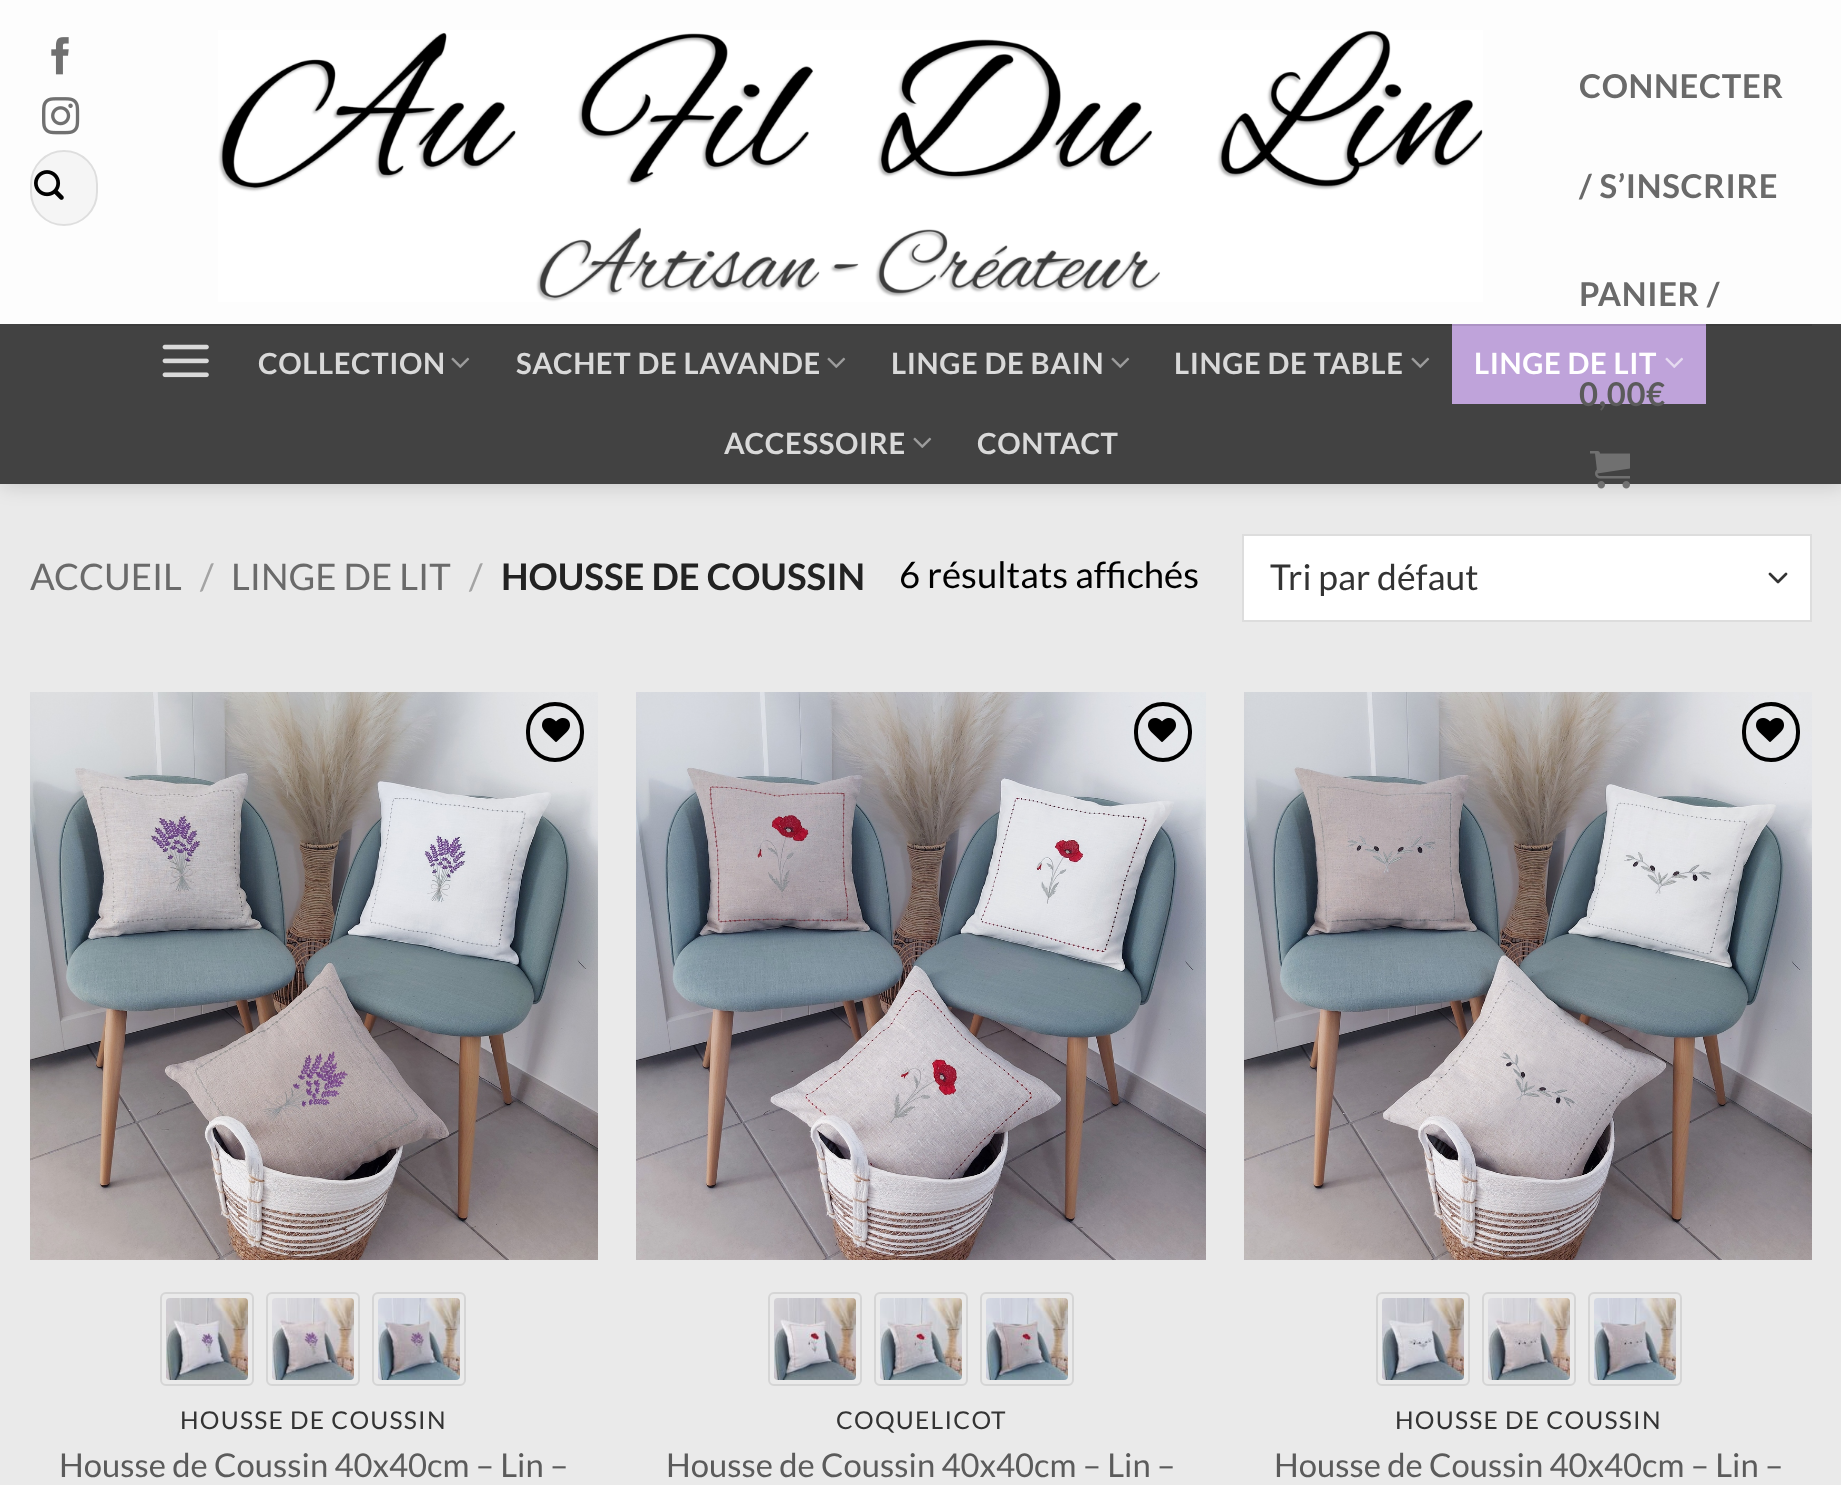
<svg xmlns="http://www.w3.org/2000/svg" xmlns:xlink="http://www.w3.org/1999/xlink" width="1841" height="1485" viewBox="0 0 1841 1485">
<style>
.cls-1{font:bold 29.25px Lato;letter-spacing:0.6px;fill:#d9d9d9}
.cls-2{font:bold 29.25px Lato;letter-spacing:0.6px;fill:#ffffff}
.cls-3{font:bold 32.8px Lato;letter-spacing:0.7px;fill:#6a6a6a}
.cls-4{font:bold 32.8px Lato;letter-spacing:0.7px;fill:#5b5b5b}
.cls-5{font:36.5px Lato;fill:#6a6a6a}
.cls-6{font:36.5px Lato;fill:#a4a4a4}
.cls-7{font:bold 36.5px Lato;fill:#222222}
.cls-8{font:36.5px Lato;fill:#000000}
.cls-9{font:35.5px Lato;fill:#333333}
.cls-10{font:24.6px Lato;letter-spacing:1.25px;fill:#333333}
.cls-11{font:32.8px Lato;fill:#5b5b5b}
</style>
<rect width="100%" height="100%" fill="#eaeaea"/>
<rect fill="#000000" fill-opacity="0.15" filter="blur(10px)" x="2" y="2" width="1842" height="484"/>
<rect fill="#fdfdfd" x="0" y="0" width="1841" height="324"/>
<rect fill="#424242" x="0" y="324" width="1841" height="160"/>
<rect fill="#3b3b3b" x="30" y="324" width="1782" height="2"/>
<image xlink:href="image0.png" x="162" y="344" width="47" height="34"/>
<image xlink:href="image1.png" x="451" y="357" width="19" height="11"/>
<image xlink:href="image1.png" x="827" y="357" width="19" height="11"/>
<image xlink:href="image1.png" x="1111" y="357" width="19" height="11"/>
<image xlink:href="image1.png" x="1411" y="357" width="19" height="11"/>
<rect fill="#bfa3da" x="1452" y="326" width="254" height="78"/>
<rect fill="#ac93c4" x="1452" y="324" width="254" height="2"/>
<image xlink:href="image2.png" x="1665" y="357" width="18" height="11"/>
<image xlink:href="image1.png" x="913" y="437" width="19" height="11"/>
<image xlink:href="image3.png" x="51" y="37" width="18" height="38"/>
<image xlink:href="image4.png" x="42" y="97" width="38" height="38"/>
<rect fill="#f5f5f5" x="30" y="150" width="68" height="76" rx="34"/>
<rect fill="none" stroke="#000000" stroke-opacity="0.09" stroke-width="2" x="31" y="151" width="66" height="74" rx="33"/>
<image xlink:href="image5.png" x="34" y="170" width="30" height="30"/>
<image xlink:href="image6.png" x="218" y="30" width="1265" height="272"/>
<image xlink:href="image7.png" x="1590" y="451" width="40" height="38"/>
<rect fill="#ffffff" x="1244" y="536" width="566" height="84"/>
<path fill="none" stroke="#333333" stroke-width="2.7" stroke-linecap="round" stroke-linejoin="round" d="M1770 574L1778 582L1786 574"/>
<rect fill="none" stroke="#dddddd" stroke-width="2" x="1243" y="535" width="568" height="86"/>
<image xlink:href="image8.png" x="30" y="692" width="568" height="568"/>
<rect fill="none" stroke="#000000" stroke-width="4" x="528" y="704" width="54" height="56" rx="27"/>
<image xlink:href="image9.png" x="542" y="718" width="28" height="24"/>
<rect fill="none" stroke="#d5d5d5" stroke-width="2" x="161" y="1293" width="92" height="92" rx="5"/>
<image xlink:href="image10.png" x="166" y="1298" width="82" height="82"/>
<rect fill="none" stroke="#d5d5d5" stroke-width="2" x="267" y="1293" width="92" height="92" rx="5"/>
<image xlink:href="image11.png" x="272" y="1298" width="82" height="82"/>
<rect fill="none" stroke="#d5d5d5" stroke-width="2" x="373" y="1293" width="92" height="92" rx="5"/>
<image xlink:href="image12.png" x="378" y="1298" width="82" height="82"/>
<image xlink:href="image13.png" x="636" y="692" width="570" height="568"/>
<rect fill="none" stroke="#000000" stroke-width="4" x="1136" y="704" width="54" height="56" rx="27"/>
<image xlink:href="image14.png" x="1148" y="718" width="28" height="24"/>
<rect fill="none" stroke="#d5d5d5" stroke-width="2" x="769" y="1293" width="92" height="92" rx="5"/>
<image xlink:href="image15.png" x="774" y="1298" width="82" height="82"/>
<rect fill="none" stroke="#d5d5d5" stroke-width="2" x="875" y="1293" width="92" height="92" rx="5"/>
<image xlink:href="image16.png" x="880" y="1298" width="82" height="82"/>
<rect fill="none" stroke="#d5d5d5" stroke-width="2" x="981" y="1293" width="92" height="92" rx="5"/>
<image xlink:href="image17.png" x="986" y="1298" width="82" height="82"/>
<image xlink:href="image18.png" x="1244" y="692" width="568" height="568"/>
<rect fill="none" stroke="#000000" stroke-width="4" x="1744" y="704" width="54" height="56" rx="27"/>
<image xlink:href="image19.png" x="1756" y="718" width="28" height="24"/>
<rect fill="none" stroke="#d5d5d5" stroke-width="2" x="1377" y="1293" width="92" height="92" rx="5"/>
<image xlink:href="image20.png" x="1382" y="1298" width="82" height="82"/>
<rect fill="none" stroke="#d5d5d5" stroke-width="2" x="1483" y="1293" width="92" height="92" rx="5"/>
<image xlink:href="image21.png" x="1488" y="1298" width="82" height="82"/>
<rect fill="none" stroke="#d5d5d5" stroke-width="2" x="1589" y="1293" width="92" height="92" rx="5"/>
<image xlink:href="image22.png" x="1594" y="1298" width="82" height="82"/>
<text class="cls-1" x="258" y="374">COLLECTION</text>
<text class="cls-1" x="516" y="374">SACHET DE LAVANDE</text>
<text class="cls-1" x="891" y="374">LINGE DE BAIN</text>
<text class="cls-1" x="1174" y="374">LINGE DE TABLE</text>
<text class="cls-2" x="1474" y="374">LINGE DE LIT</text>
<text class="cls-1" x="724" y="454">ACCESSOIRE</text>
<text class="cls-1" x="977" y="454">CONTACT</text>
<text class="cls-3" x="1579" y="98">CONNECTER</text>
<text class="cls-3" x="1579" y="198">/ S’INSCRIRE</text>
<text class="cls-3" x="1579" y="306">PANIER /</text>
<text class="cls-4" x="1579" y="406">0,00</text>
<text class="cls-4" x="1646" y="406">€</text>
<text class="cls-5" x="30" y="590">ACCUEIL</text>
<text class="cls-6" x="200" y="590">/</text>
<text class="cls-5" x="231" y="590">LINGE DE LIT</text>
<text class="cls-6" x="469" y="590">/</text>
<text class="cls-7" x="501" y="590">HOUSSE DE COUSSIN</text>
<text class="cls-8" x="899" y="588">6 résultats affichés</text>
<text class="cls-9" x="1270" y="590">Tri par défaut</text>
<text class="cls-10" x="180" y="1429">HOUSSE DE COUSSIN</text>
<text class="cls-11" x="59" y="1477">Housse de Coussin 40x40cm – Lin –</text>
<text class="cls-10" x="836" y="1429">COQUELICOT</text>
<text class="cls-11" x="666" y="1477">Housse de Coussin 40x40cm – Lin –</text>
<text class="cls-10" x="1395" y="1429">HOUSSE DE COUSSIN</text>
<text class="cls-11" x="1274" y="1477">Housse de Coussin 40x40cm – Lin –</text>
</svg>
